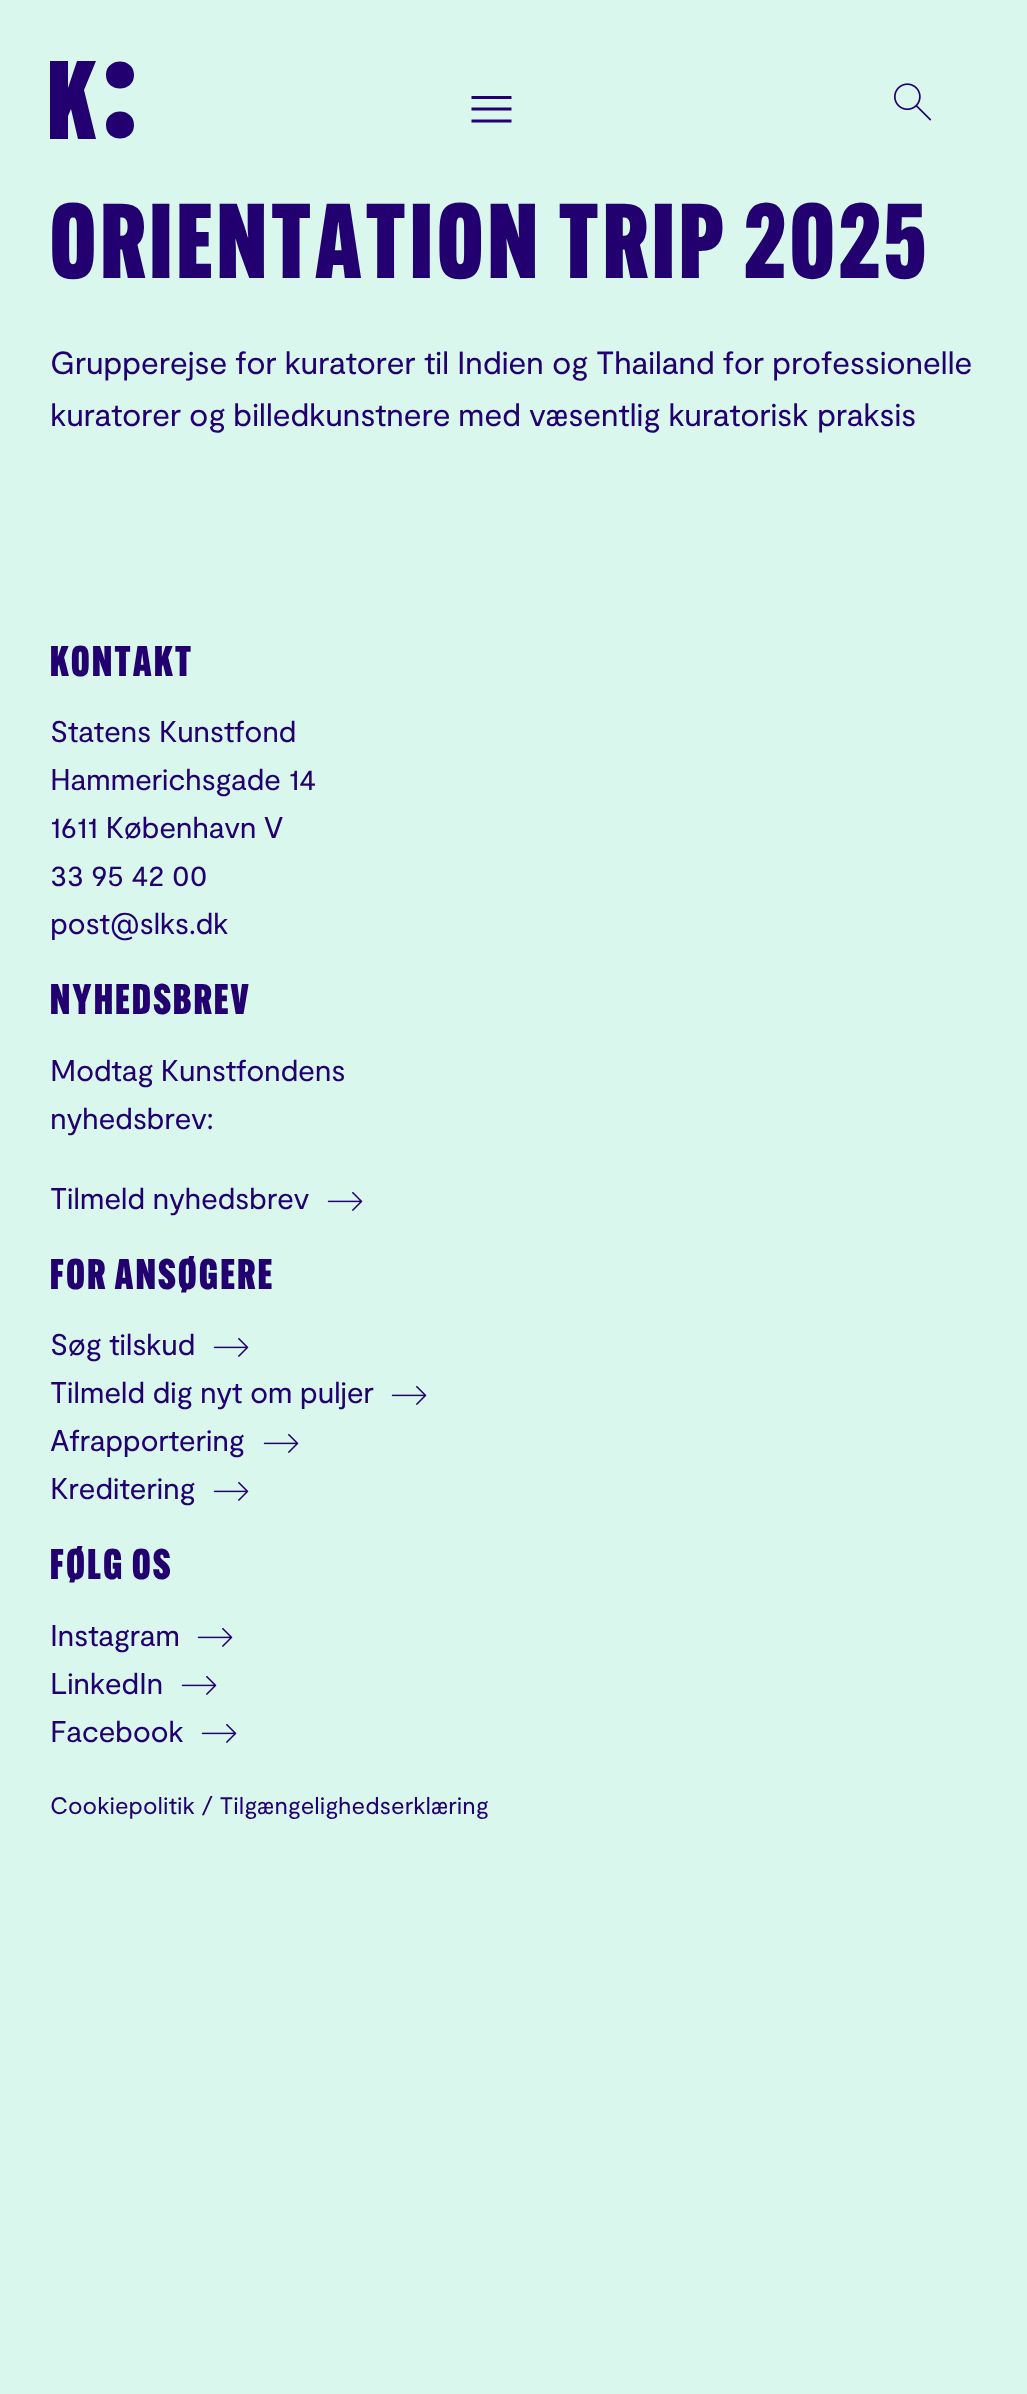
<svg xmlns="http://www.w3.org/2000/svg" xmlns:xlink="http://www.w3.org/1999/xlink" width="1027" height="2394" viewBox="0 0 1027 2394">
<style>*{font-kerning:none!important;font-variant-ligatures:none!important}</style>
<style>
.cls-1{font:900 104px 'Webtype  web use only';letter-spacing:4.75px;fill:#22006f}
.cls-2{font:32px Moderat;letter-spacing:-0.4px;fill:#22006f}
.cls-3{font:900 42px 'Webtype  web use only';letter-spacing:2.5px;fill:#22006f}
.cls-4{font:30px Moderat;letter-spacing:-0.4px;fill:#22006f}
.cls-5{font:24px Moderat;fill:#22006f}
</style>
<rect width="100%" height="100%" fill="#daf7ee"/>
<path fill="#22006f" fill-rule="evenodd" d="M134 125C134 143 106 143 106 125C106 107 134 107 134 125M134 75C134 93 106 93 106 75C106 57 134 57 134 75M96 61L84 90L96 139H78L71 109L68 116V139H50V61H68V88L77 61Z"/>
<path fill="#22006f" d="M471.5 96H511.5V99H471.5ZM471.5 107.5H511.5V110.5H471.5ZM471.5 119.5H511.5V122.5H471.5Z"/>
<image xlink:href="image0.png" x="894" y="83" width="38" height="38"/>
<image xlink:href="image1.png" x="327" y="1191" width="36" height="20"/>
<image xlink:href="image1.png" x="213" y="1337" width="36" height="20"/>
<image xlink:href="image1.png" x="391" y="1385" width="36" height="20"/>
<image xlink:href="image1.png" x="263" y="1433" width="36" height="20"/>
<image xlink:href="image1.png" x="213" y="1481" width="36" height="20"/>
<image xlink:href="image1.png" x="197" y="1627" width="36" height="20"/>
<image xlink:href="image1.png" x="181" y="1675" width="36" height="20"/>
<image xlink:href="image1.png" x="201" y="1723" width="36" height="20"/>
<text class="cls-1" x="50" y="278">ORIENTATION TRIP 2025</text>
<text class="cls-2" x="50" y="374">Grupperejse for kuratorer</text>
<text class="cls-2" x="424" y="374">til Indien og Thailand for professionelle</text>
<text class="cls-2" x="50" y="426">kuratorer og billedkunstnere</text>
<text class="cls-2" x="458" y="426">med væsentlig kuratorisk</text>
<text class="cls-2" x="817" y="426">praksis</text>
<text class="cls-3" x="50" y="676">KONTAKT</text>
<text class="cls-4"><tspan x="50" y="742">Statens Kunstfond</tspan><tspan x="50" y="790">Hammerichsgade 14</tspan><tspan x="50" y="838">1611 København V</tspan><tspan x="50" y="886">33 95 42 00</tspan><tspan x="50" y="934">post@slks.dk</tspan></text>
<text class="cls-3" x="50" y="1014">NYHEDSBREV</text>
<text class="cls-4"><tspan x="50" y="1081">Modtag Kunstfondens</tspan><tspan x="50" y="1129">nyhedsbrev:</tspan></text>
<text class="cls-4" x="50" y="1209">Tilmeld nyhedsbrev</text>
<text class="cls-3" x="50" y="1289">FOR ANSØGERE</text>
<text class="cls-4"><tspan x="50" y="1355">Søg tilskud</tspan><tspan x="50" y="1403">Tilmeld dig nyt om puljer</tspan><tspan x="50" y="1451">Afrapportering</tspan><tspan x="50" y="1499">Kreditering</tspan></text>
<text class="cls-3" x="50" y="1579">FØLG OS</text>
<text class="cls-4"><tspan x="50" y="1646">Instagram</tspan><tspan x="50" y="1694">LinkedIn</tspan><tspan x="50" y="1742">Facebook</tspan></text>
<text class="cls-5" x="50" y="1814">Cookiepolitik / Tilgængelighedserklæring</text>
</svg>
